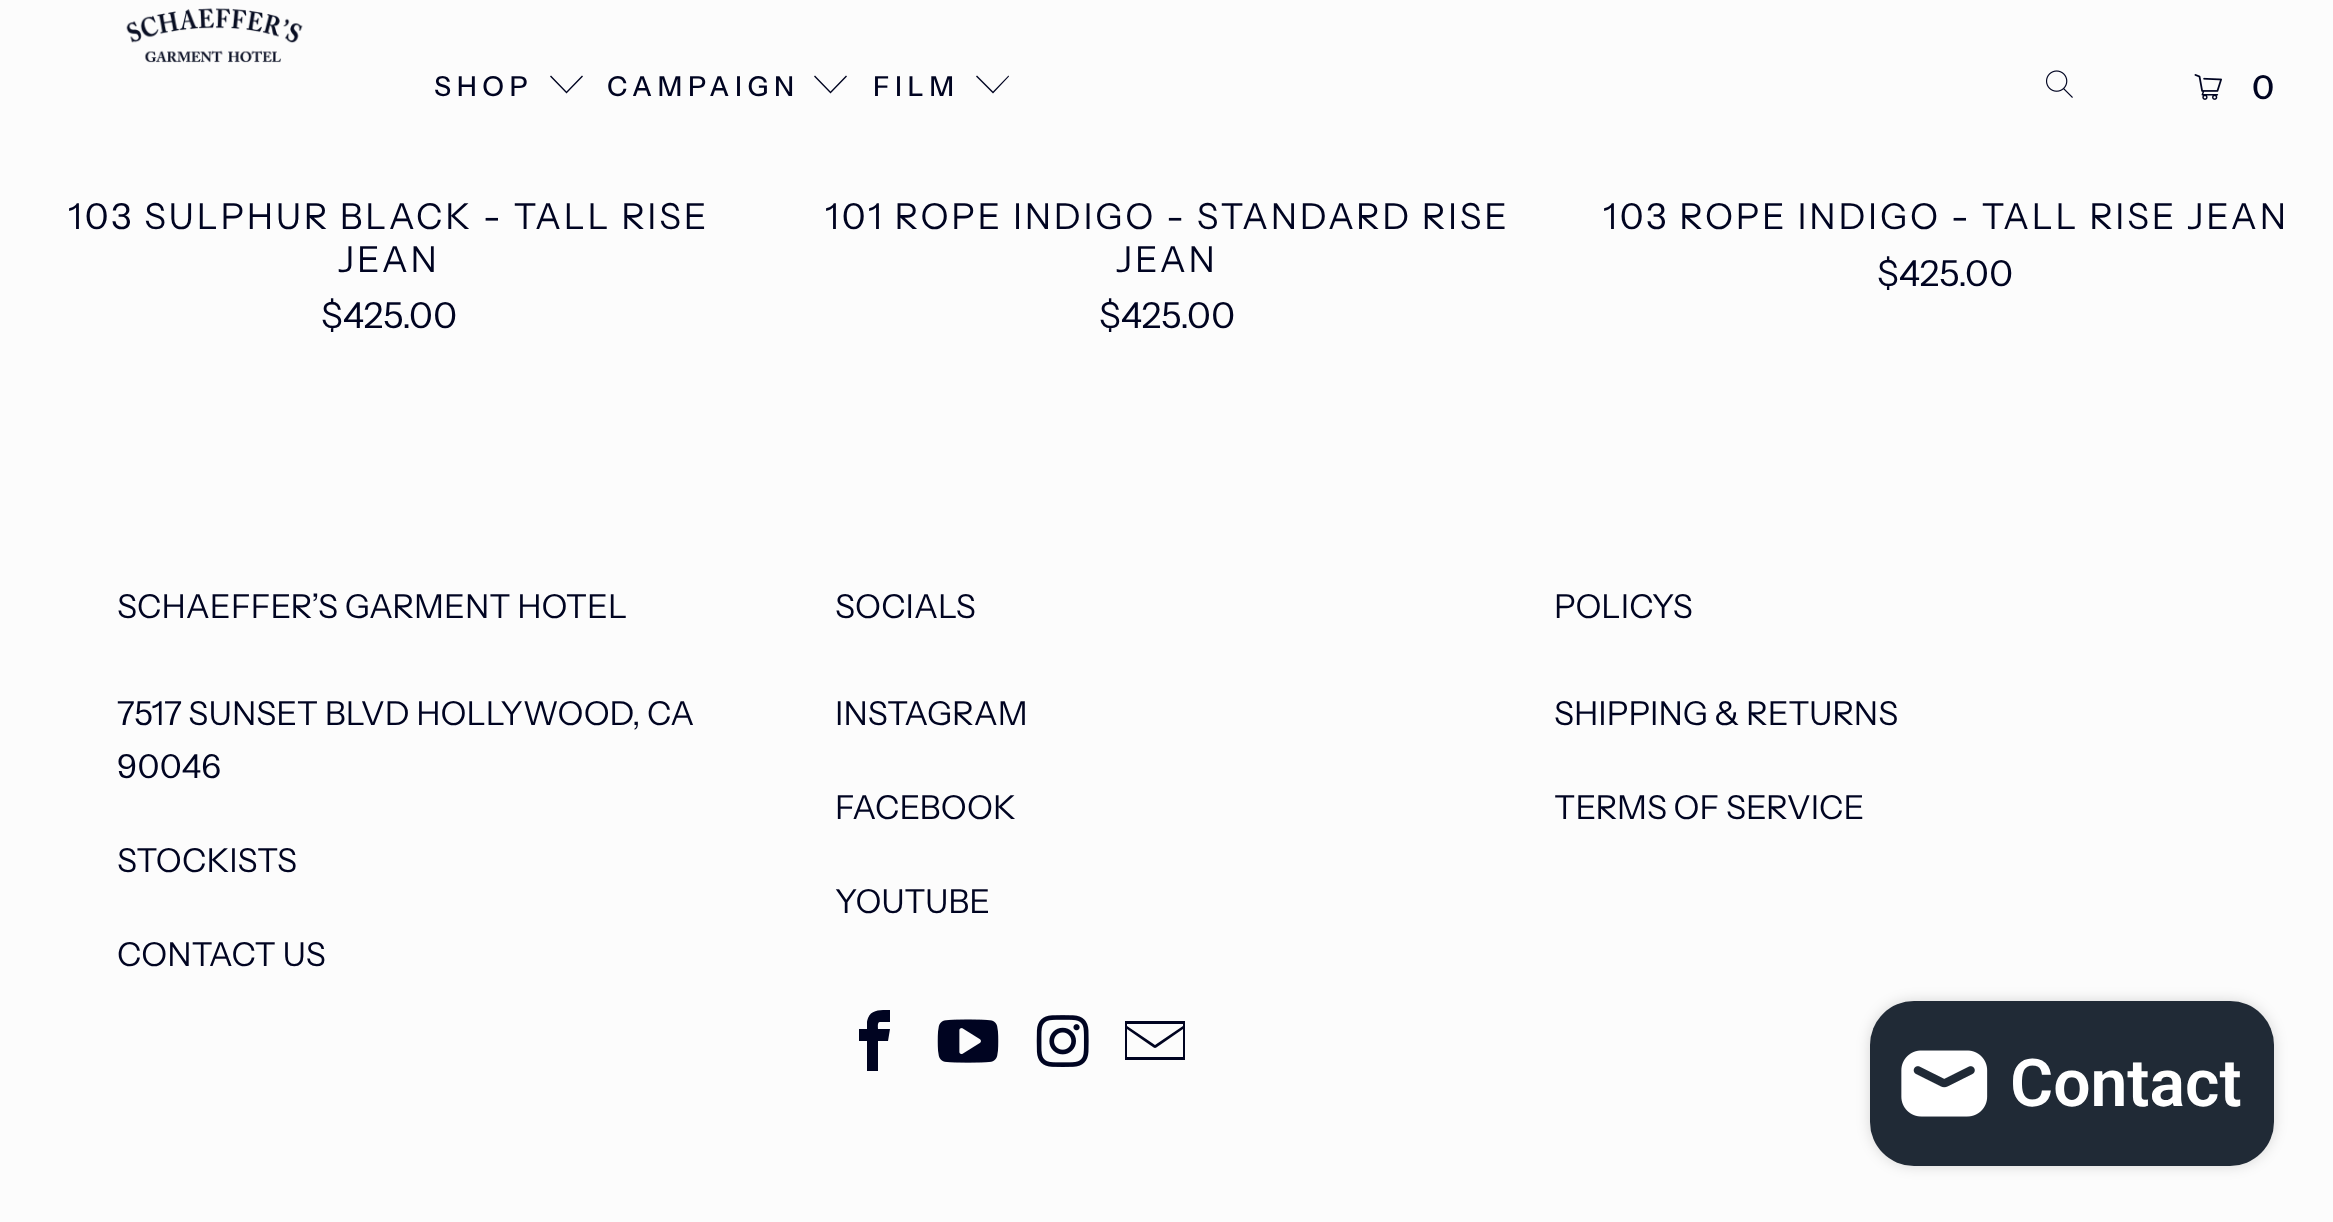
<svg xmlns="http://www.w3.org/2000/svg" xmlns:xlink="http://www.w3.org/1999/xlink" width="2333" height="1222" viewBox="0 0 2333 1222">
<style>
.cls-1{font:500 27.5px Instrument Sans;letter-spacing:5.5px;fill:#000421}
.cls-2{font:500 33px Instrument Sans;letter-spacing:5.5px;fill:#000421}
.cls-3{font:35.75px Instrument Sans;letter-spacing:2.75px;fill:#000421}
.cls-4{font:35.75px Instrument Sans;fill:#000421}
.cls-5{font:33px Instrument Sans;fill:#000421}
.cls-6{font:600 66px Roboto;fill:#ffffff}
</style>
<rect width="100%" height="100%" fill="#fcfcfc"/>
<image xlink:href="image0.png" x="126" y="8" width="177" height="55"/>
<path fill="#000421" d="M566.5 93.5L550 76.5L551 75.5L566.5 91.5L582 75.5L583 76.5Z"/>
<path fill="#000421" d="M830.5 93.5L814 76.5L815 75.5L830.5 91.5L846 75.5L847 76.5Z"/>
<path fill="#000421" d="M993 93.5L976 76.5L977 75.5L993 91.5L1008.5 75.5L1009 76.5Z"/>
<image xlink:href="image1.png" x="2046" y="70" width="27" height="28"/>
<image xlink:href="image2.png" x="2194" y="74" width="28" height="26"/>
<path fill="#000421" d="M880 1022H890V1010C880 1010 869 1009 867 1022V1029H859V1041H867V1071H878V1041H888L890 1029H878C878 1028 877 1022 880 1022Z"/>
<image xlink:href="image3.png" x="937" y="1019" width="62" height="44"/>
<image xlink:href="image4.png" x="1036" y="1015" width="53" height="52"/>
<path fill="#000421" d="M1125 1021V1060H1185V1021ZM1183 1024V1026L1155 1045L1127 1026V1024ZM1127 1057V1029L1150 1045C1156 1049 1154 1049 1160 1045L1183 1029V1057Z"/>
<rect fill="#000000" fill-opacity="0.15" filter="blur(7px)" x="1870" y="1001" width="404" height="165" rx="44"/>
<rect fill="#202a36" x="1870" y="1001" width="404" height="165" rx="44"/>
<image xlink:href="image5.png" x="1901" y="1050" width="87" height="67"/>
<text class="cls-1" x="434" y="96">SHOP</text>
<text class="cls-1" x="607" y="96">CAMPAIGN</text>
<text class="cls-1" x="873" y="96">FILM</text>
<text class="cls-2" x="2252" y="99">0</text>
<text class="cls-3" x="68" y="229">103 SULPHUR BLACK - TALL RISE</text>
<text class="cls-3" x="338" y="272">JEAN</text>
<text class="cls-4" x="321" y="328">$425.00</text>
<text class="cls-3" x="825" y="229">101 ROPE INDIGO - STANDARD RISE</text>
<text class="cls-3" x="1116" y="272">JEAN</text>
<text class="cls-4" x="1099" y="328">$425.00</text>
<text class="cls-3" x="1603" y="229">103 ROPE INDIGO - TALL RISE JEAN</text>
<text class="cls-4" x="1877" y="286">$425.00</text>
<text class="cls-5" x="117" y="618">SCHAEFFER’S GARMENT HOTEL</text>
<text class="cls-5"><tspan x="117" y="725">7517 SUNSET BLVD HOLLYWOOD, CA</tspan><tspan x="117" y="778">90046</tspan></text>
<text class="cls-5" x="117" y="872">STOCKISTS</text>
<text class="cls-5" x="117" y="966">CONTACT US</text>
<text class="cls-5" x="835" y="618">SOCIALS</text>
<text class="cls-5" x="835" y="725">INSTAGRAM</text>
<text class="cls-5" x="835" y="819">FACEBOOK</text>
<text class="cls-5" x="835" y="913">YOUTUBE</text>
<text class="cls-5" x="1554" y="618">POLICYS</text>
<text class="cls-5" x="1554" y="725">SHIPPING &amp; RETURNS</text>
<text class="cls-5" x="1554" y="819">TERMS OF SERVICE</text>
<text class="cls-6" x="2010" y="1106">Contact</text>
</svg>
